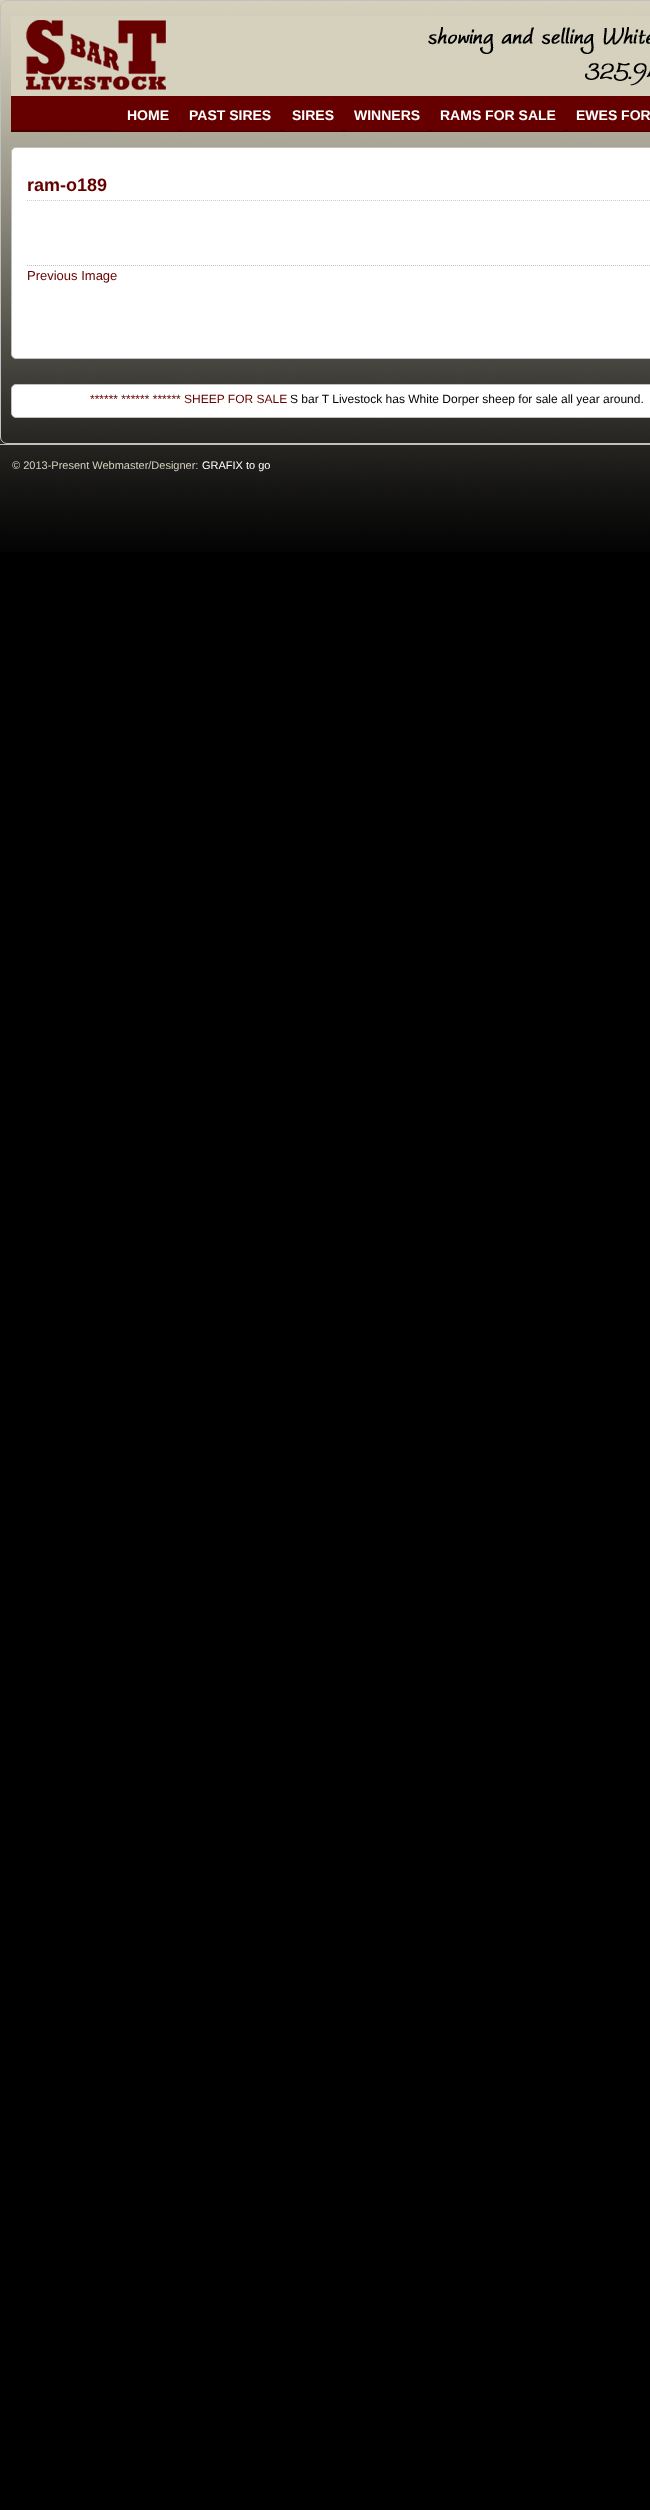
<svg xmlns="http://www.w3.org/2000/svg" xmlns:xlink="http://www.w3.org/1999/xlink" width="650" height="2510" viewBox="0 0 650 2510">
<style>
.cls-1{font:bold 14px Liberation Sans;fill:#ffffff}
.cls-2{font:bold 18px Liberation Sans;fill:#660000}
.cls-3{font:13px Liberation Sans;fill:#660000}
.cls-4{font:12px Liberation Sans;fill:#660000}
.cls-5{font:12px Liberation Sans;fill:#000000}
.cls-6{font:11px Liberation Sans;fill:#d5d1bd}
.cls-7{font:11px Liberation Sans;fill:#ffffff}
</style>
<rect width="100%" height="100%" fill="#000000"/>
<image xlink:href="image0.png" x="0" y="0" width="650" height="552"/>
<rect fill="none" stroke="#c0c0c0" x="0.5" y="0.5" width="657" height="443" rx="6.5"/>
<image xlink:href="image1.png" x="11" y="16" width="639" height="80"/>
<rect fill="#660000" x="11" y="96" width="562" height="34"/>
<rect fill="#440000" x="11" y="130" width="639" height="2"/>
<path fill="#660000" d="M124 96H172C175 96 177 98 177 101V131H119V101C119 98 121 96 124 96Z"/>
<path fill="#660000" d="M186 96H275C278 96 280 98 280 101V131H181V101C181 98 183 96 186 96Z"/>
<path fill="#660000" d="M289 96H337C340 96 342 98 342 101V131H284V101C284 98 286 96 289 96Z"/>
<path fill="#660000" d="M351 96H423C426 96 428 98 428 101V131H346V101C346 98 348 96 351 96Z"/>
<path fill="#660000" d="M437 96H559C562 96 564 98 564 101V131H432V101C432 98 434 96 437 96Z"/>
<path fill="#660000" d="M573 96H650C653 96 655 98 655 101V131H568V101C568 98 570 96 573 96Z"/>
<rect fill="#ffffff" stroke="#c0c0c0" x="11.5" y="147.5" width="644" height="211" rx="4.5"/>
<path fill="none" stroke="#cccccc" stroke-dasharray="1 1" d="M27 200.5H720"/>
<path fill="none" stroke="#c0c0c0" stroke-dasharray="1 1" d="M27 265.5H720"/>
<rect fill="#ffffff" stroke="#c0c0c0" x="11.5" y="384.5" width="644" height="33" rx="4.5"/>
<rect fill="#c0c0c0" x="0" y="444" width="650" height="1"/>
<text class="cls-1" x="127" y="120">HOME</text>
<text class="cls-1" x="189" y="120">PAST SIRES</text>
<text class="cls-1" x="292" y="120">SIRES</text>
<text class="cls-1" x="354" y="120">WINNERS</text>
<text class="cls-1" x="440" y="120">RAMS FOR SALE</text>
<text class="cls-1" x="576" y="120">EWES FOR</text>
<text class="cls-2" x="27" y="191">ram-o189</text>
<text class="cls-3" x="27" y="280">Previous Image</text>
<text class="cls-4" x="90" y="403">****** ****** ****** SHEEP FOR SALE</text>
<text class="cls-5" x="290" y="403">S bar T Livestock has White Dorper sheep for sale all year around.</text>
<text class="cls-6" x="12" y="469">© 2013-Present Webmaster/Designer:</text>
<text class="cls-7" x="202" y="469">GRAFIX to go</text>
</svg>
